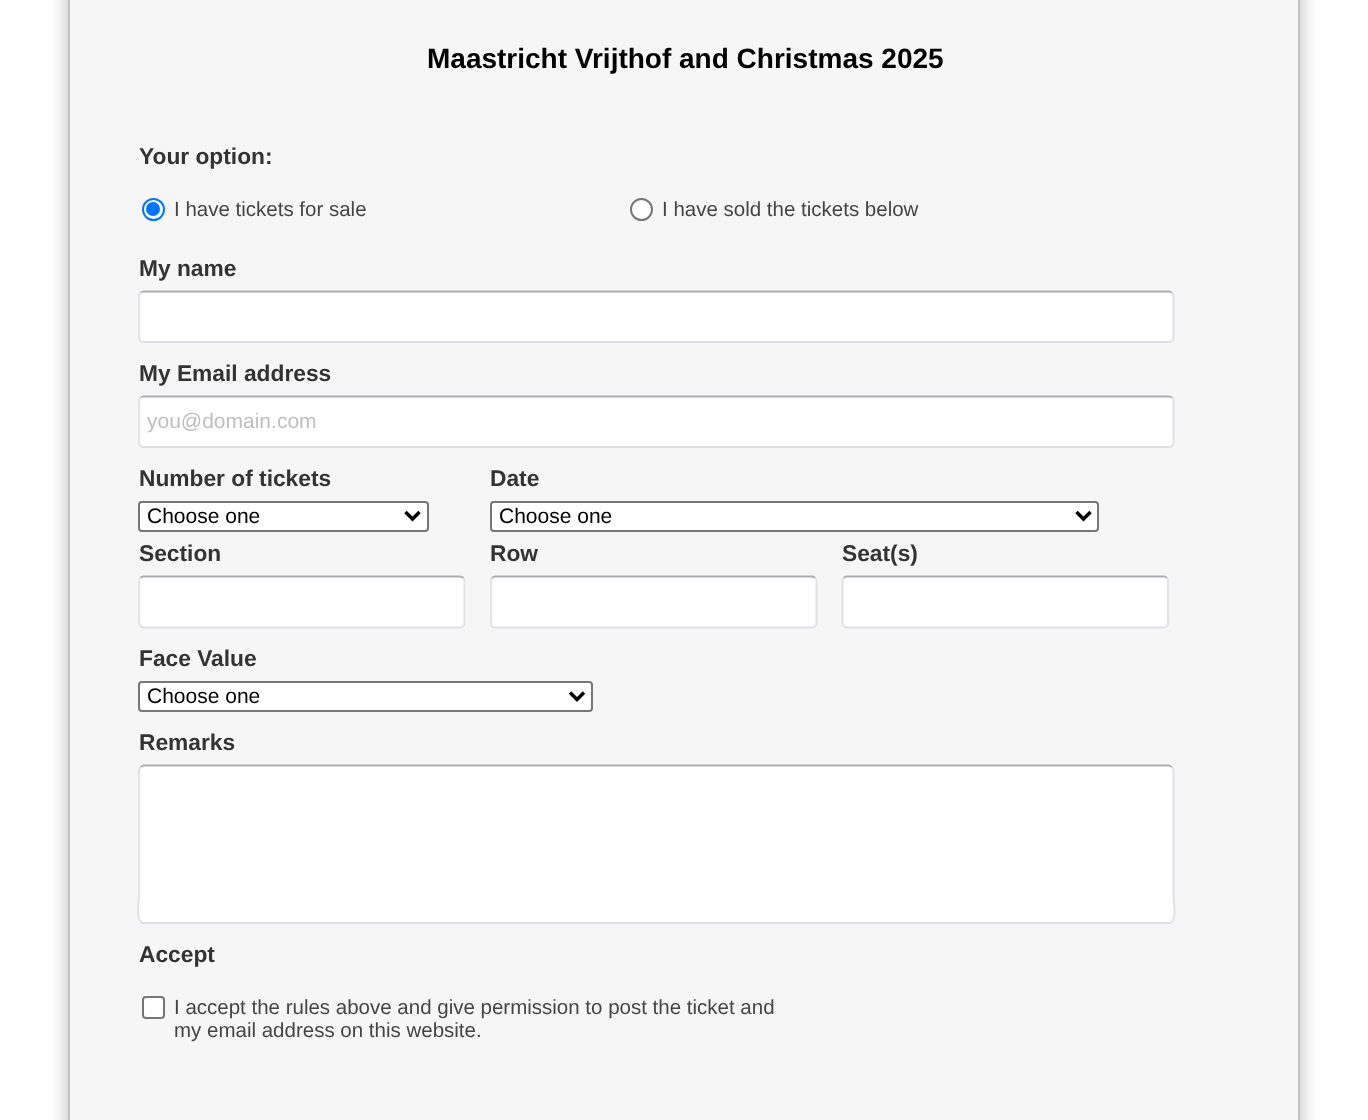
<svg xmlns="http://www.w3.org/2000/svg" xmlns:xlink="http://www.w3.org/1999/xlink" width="1368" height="1120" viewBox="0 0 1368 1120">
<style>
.cls-1{font:bold 28px Liberation Sans;fill:#000000}
.cls-2{font:bold 22.75px Liberation Sans;fill:#333333}
.cls-3{font:20.5px Liberation Sans;fill:#444444}
.cls-4{font:21px Liberation Sans;fill:#bebebe}
.cls-5{font:21px Liberation Sans;fill:#000000}
</style>
<rect width="100%" height="100%" fill="#ffffff"/>
<rect fill="#000000" fill-opacity="0.28" filter="blur(9px)" x="68" y="-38" width="1232" height="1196" rx="11"/>
<rect fill="#f6f6f6" stroke="#c1c1c1" stroke-width="2" x="69" y="-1" width="1230" height="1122"/>
<circle fill="#ffffff" stroke="#0075ff" stroke-width="2" cx="153.5" cy="209.5" r="10.5"/>
<circle fill="#0075ff" cx="153" cy="209" r="7"/>
<circle fill="#ffffff" stroke="#767676" stroke-width="2" cx="641.5" cy="209.5" r="10.5"/>
<rect fill="#ffffff" x="138" y="291" width="1036" height="52" rx="5"/>
<path fill="none" stroke="#aaadb2" stroke-width="1.8" d="M140.5 292.5L143.5 291.5H1169L1172 292.5"/>
<path fill="none" stroke="#dcdfe7" stroke-width="1.8" d="M1172 292.5C1173 293.5 1173.5 294.5 1173.5 296V338C1173.5 339 1173 340 1172 341C1171.5 341.5 1170 342 1169 342H143.5C142.5 342 141 341.5 140.5 341C139.5 340 139 339 139 338V296C139 294.5 139.5 293.5 140.5 292.5"/>
<rect fill="#ffffff" x="138" y="396" width="1036" height="52" rx="5"/>
<path fill="none" stroke="#aaadb2" stroke-width="1.8" d="M140.5 397.5L143.5 396.5H1169L1172 397.5"/>
<path fill="none" stroke="#dcdfe7" stroke-width="1.8" d="M1172 397.5C1173 398.5 1173.5 399.5 1173.5 401V443C1173.5 444 1173 445 1172 446C1171.5 446.5 1170 447 1169 447H143.5C142.5 447 141 446.5 140.5 446C139.5 445 139 444 139 443V401C139 399.5 139.5 398.5 140.5 397.5"/>
<rect fill="#ffffff" stroke="#767676" stroke-width="2" x="139" y="502" width="289" height="29" rx="3"/>
<path fill="none" stroke="#000000" stroke-width="3.5" d="M405.5 512L412.5 519L419.5 512"/>
<rect fill="#ffffff" stroke="#767676" stroke-width="2" x="491" y="502" width="607" height="29" rx="3"/>
<path fill="none" stroke="#000000" stroke-width="3.5" d="M1076.5 512L1083.5 519L1090.5 512"/>
<rect fill="#ffffff" x="138" y="576" width="328" height="52" rx="5"/>
<path fill="none" stroke="#aaadb2" stroke-width="1.8" d="M140.5 578C141 577 142.5 576.5 143.5 576.5H460C461.5 576.5 462.5 577 463.5 578"/>
<path fill="none" stroke="#dcdfe7" stroke-width="1.8" d="M463.5 578C464 578.5 464.5 580 464.5 581V623C464.5 624 464 625.5 463.5 626C462.5 627 461.5 627.5 460 627.5H143.5C142.5 627.5 141 627 140.5 626C139.5 625.5 139 624 139 623V581C139 580 139.5 578.5 140.5 578"/>
<rect fill="#ffffff" x="490" y="576" width="327" height="52" rx="5"/>
<path fill="none" stroke="#aaadb2" stroke-width="1.8" d="M492 578C493 577 494 576.5 495 576.5H812C813 576.5 814.5 577 815 578"/>
<path fill="none" stroke="#dcdfe7" stroke-width="1.8" d="M815 578C816 578.5 816.5 580 816.5 581V623C816.5 624 816 625.5 815 626C814.5 627 813 627.5 812 627.5H495C494 627.5 493 627 492 626C491.5 625.5 491 624 491 623V581C491 580 491.5 578.5 492 578"/>
<rect fill="#ffffff" x="842" y="576" width="327" height="52" rx="5"/>
<path fill="none" stroke="#aaadb2" stroke-width="1.8" d="M844 578C844.5 577 846 576.5 847 576.5H1164C1165 576.5 1166 577 1167 578"/>
<path fill="none" stroke="#dcdfe7" stroke-width="1.8" d="M1167 578C1167.5 578.5 1168 580 1168 581V623C1168 624 1167.5 625.5 1167 626C1166 627 1165 627.5 1164 627.5H847C846 627.5 844.5 627 844 626C843 625.5 842.5 624 842.5 623V581C842.5 580 843 578.5 844 578"/>
<rect fill="#ffffff" stroke="#767676" stroke-width="2" x="139" y="682" width="453" height="29" rx="3"/>
<path fill="none" stroke="#000000" stroke-width="3.5" d="M570 692.5L577 699.5L584 692.5"/>
<rect fill="#ffffff" x="138" y="765" width="1036" height="159" rx="5"/>
<path fill="none" stroke="#aaadb2" stroke-width="1.8" d="M140.5 767L143.5 765.5H1169L1172 767"/>
<path fill="none" stroke="#dcdfe7" stroke-width="1.8" d="M1172 767L1173.5 770V894C1173.5 902.5 1177.5 923 1169 923H143.5C135 923 139 902.5 139 894V770L140.5 767"/>
<rect fill="#ffffff" stroke="#767676" stroke-width="2" x="143" y="997" width="21" height="21" rx="3"/>
<text class="cls-1" x="427" y="68">Maastricht Vrijthof and Christmas 2025</text>
<text class="cls-2" x="139" y="164">Your option:</text>
<text class="cls-3" x="174" y="216">I have tickets for sale</text>
<text class="cls-3" x="662" y="216">I have sold the tickets below</text>
<text class="cls-2" x="139" y="276">My name</text>
<text class="cls-2" x="139" y="381">My Email address</text>
<text class="cls-4" x="147" y="428">you@domain.com</text>
<text class="cls-2" x="139" y="486">Number of tickets</text>
<text class="cls-5" x="147" y="523">Choose one</text>
<text class="cls-2" x="490" y="486">Date</text>
<text class="cls-5" x="499" y="523">Choose one</text>
<text class="cls-2" x="139" y="561">Section</text>
<text class="cls-2" x="490" y="561">Row</text>
<text class="cls-2" x="842" y="561">Seat(s)</text>
<text class="cls-2" x="139" y="666">Face Value</text>
<text class="cls-5" x="147" y="703">Choose one</text>
<text class="cls-2" x="139" y="750">Remarks</text>
<text class="cls-2" x="139" y="962">Accept</text>
<text class="cls-3"><tspan x="174" y="1014">I accept the rules above and give permission to post the ticket and</tspan><tspan x="174" y="1037">my email address on this website.</tspan></text>
</svg>
